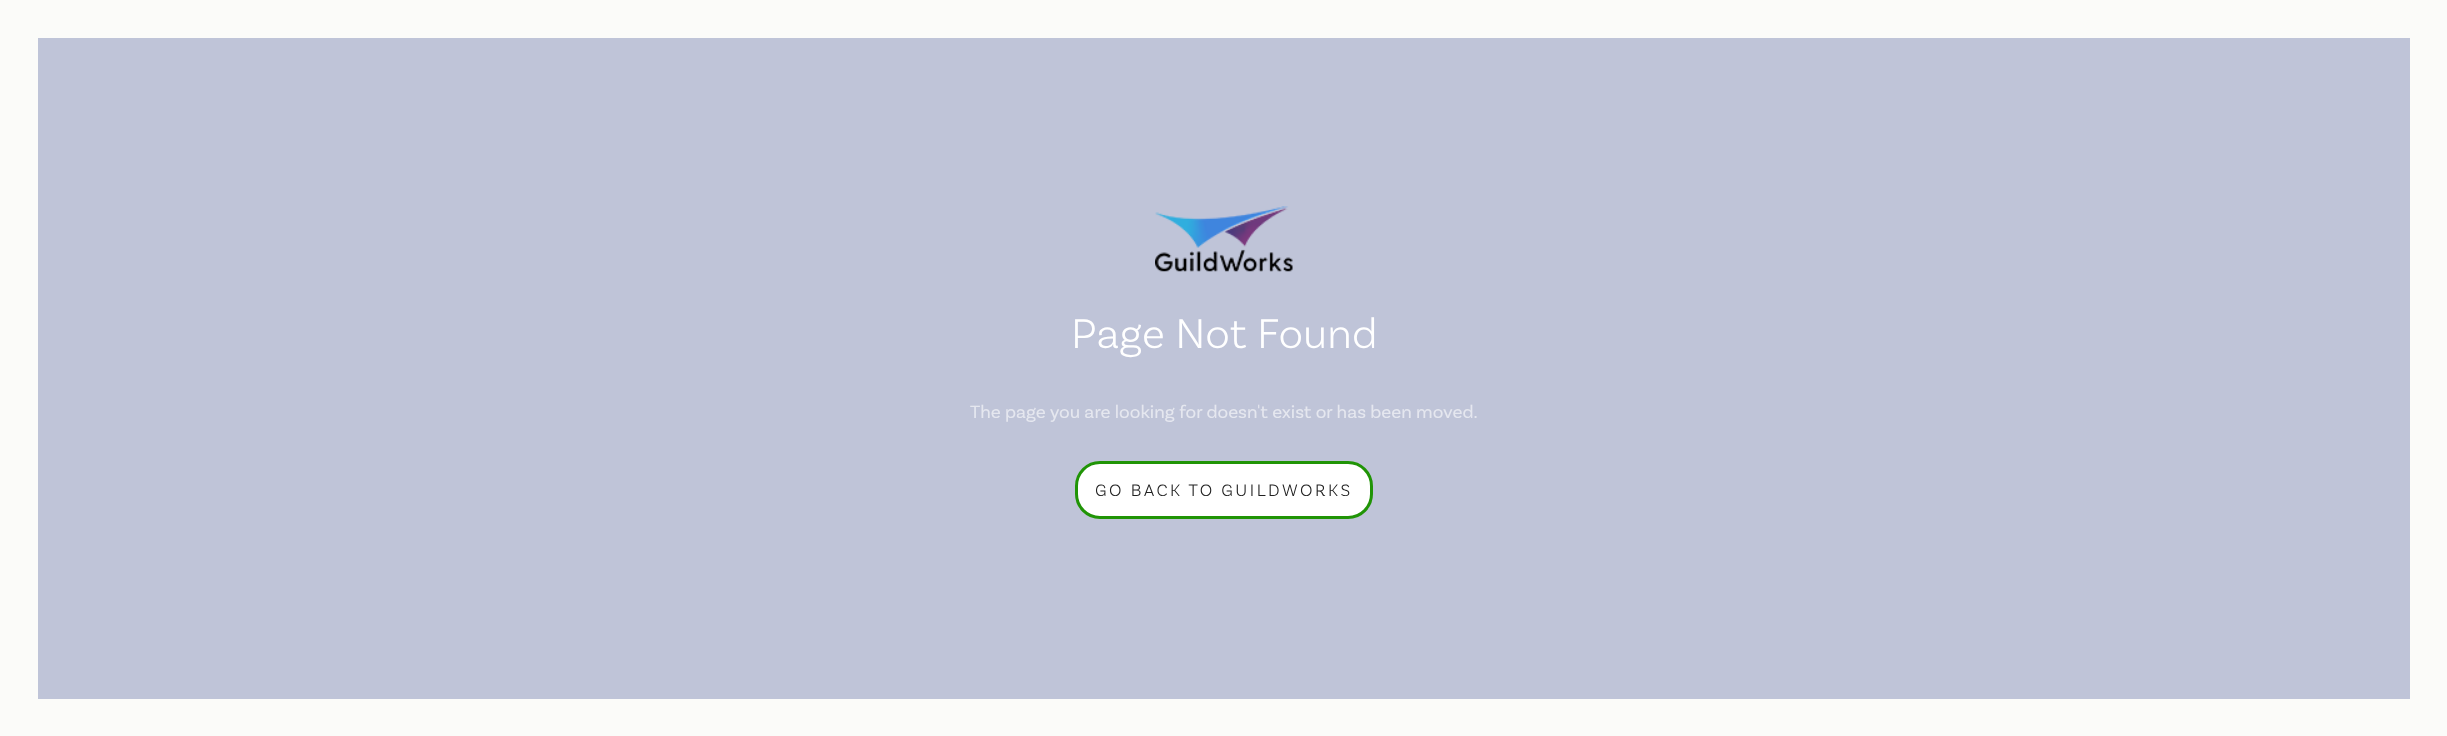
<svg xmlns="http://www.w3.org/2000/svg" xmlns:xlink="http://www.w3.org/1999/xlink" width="2447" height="736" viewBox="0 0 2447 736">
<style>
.cls-1{font:300 43.75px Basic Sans;fill:#ffffff}
.cls-2{font:18.75px Basic Sans;fill:#e5e7ef}
.cls-3{font:300 17.5px Basic Sans;letter-spacing:2.5px;fill:#202020}
</style>
<rect width="100%" height="100%" fill="#fbfbf9"/>
<rect fill="#bfc4d8" x="38" y="38" width="2372" height="661"/>
<image xlink:href="image0.png" x="1155" y="206" width="138" height="66"/>
<rect fill="#ffffff" stroke="#209406" stroke-width="3" x="1076.5" y="462.5" width="295" height="55" rx="23.5"/>
<text class="cls-1" x="1071" y="348">Page Not Found</text>
<text class="cls-2" x="970" y="418">The page you are looking for doesn't exist or has been moved.</text>
<text class="cls-3" x="1095" y="496">GO BACK TO GUILDWORKS</text>
</svg>
